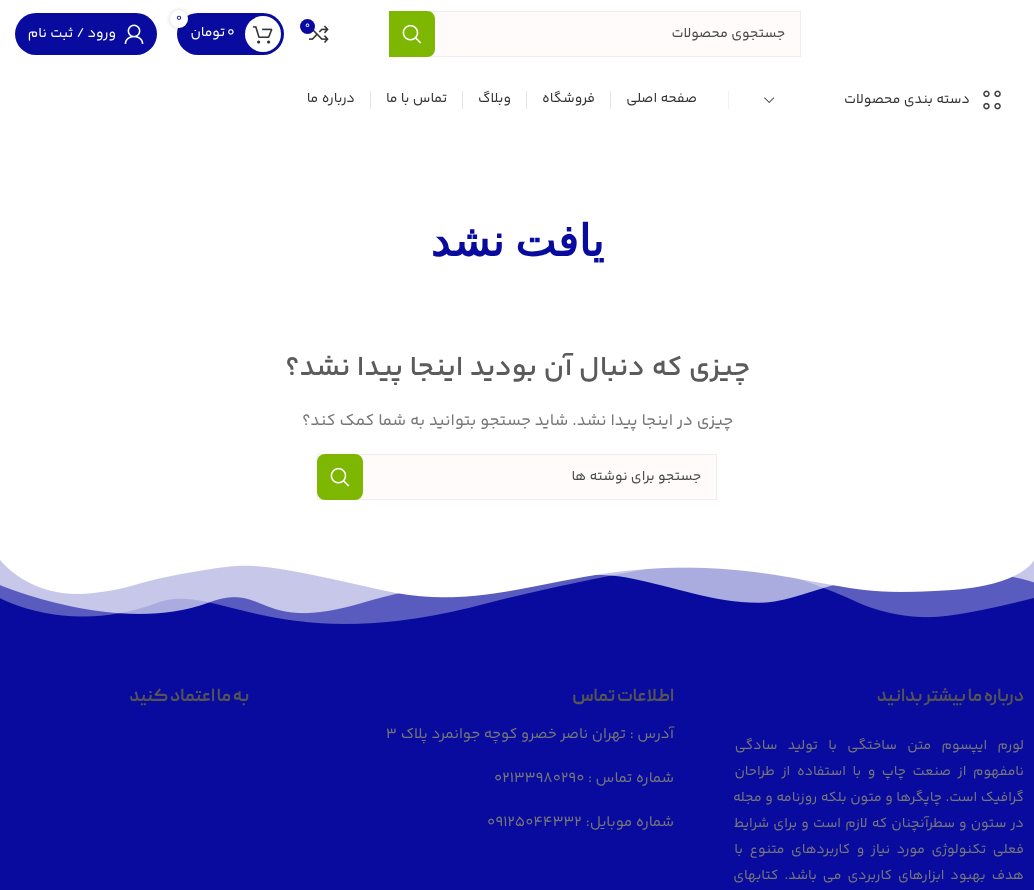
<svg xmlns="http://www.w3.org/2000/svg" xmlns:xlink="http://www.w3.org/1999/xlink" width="1034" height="890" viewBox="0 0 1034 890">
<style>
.cls-1{font:14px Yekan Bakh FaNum;direction:rtl;fill:#484848}
.cls-2{font:9px Yekan Bakh FaNum;fill:#ffffff}
.cls-3{font:11px Yekan Bakh FaNum;fill:#080b9e}
.cls-4{font:14px Yekan Bakh FaNum;fill:#ffffff}
.cls-5{font:14px Yekan Bakh FaNum;direction:rtl;fill:#ffffff}
.cls-6{font:14px Yekan Bakh FaNum;direction:rtl;fill:#333333}
.cls-7{font:bold 43.5px DejaVu Sans;direction:rtl;fill:#080b9e}
.cls-8{font:600 28px Yekan Bakh FaNum;direction:rtl;fill:#5b5b5b}
.cls-9{font:16.5px Yekan Bakh FaNum;direction:rtl;fill:#777777}
.cls-10{font:bold 18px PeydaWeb;direction:rtl;fill:#545454}
.cls-11{font:14px Yekan Bakh FaNum;direction:rtl;fill:#777777}
.cls-12{font:15px Yekan Bakh FaNum;direction:rtl;fill:#777777}
.cls-13{font:15px Yekan Bakh FaNum;fill:#777777}
</style>
<rect width="100%" height="100%" fill="#ffffff"/>
<rect fill="#fffbfb" x="430" y="12" width="370" height="44"/>
<rect fill="none" stroke="#f1eded" x="389.5" y="11.5" width="411" height="45"/>
<path fill="#7db701" d="M389 11H427C431.5 11 435 14.5 435 19V49C435 53.5 431.5 57 427 57H389Z"/>
<image xlink:href="image0.png" x="402" y="24" width="20" height="20"/>
<image xlink:href="image1.png" x="309" y="25" width="20" height="18"/>
<circle fill="#080b9e" cx="307.5" cy="26.5" r="7.5"/>
<rect fill="#080b9e" x="177" y="13" width="107" height="42" rx="21"/>
<circle fill="#ffffff" cx="263" cy="34" r="18"/>
<rect fill="#000000" fill-opacity="0.17" filter="blur(2px)" x="170" y="10" width="18" height="18" rx="9"/>
<circle fill="#ffffff" cx="179" cy="19" r="9"/>
<image xlink:href="image2.png" x="253" y="26" width="20" height="18"/>
<rect fill="#080b9e" x="15" y="13" width="142" height="42" rx="21"/>
<image xlink:href="image3.png" x="124" y="24" width="20" height="20"/>
<image xlink:href="image4.png" x="983" y="90" width="18" height="20"/>
<image xlink:href="image5.png" x="764" y="97" width="11" height="6"/>
<rect fill="#f1f1f1" x="728" y="91" width="1" height="18"/>
<rect fill="#e4e4e4" x="610" y="91" width="1" height="18"/>
<rect fill="#e4e4e4" x="526" y="91" width="1" height="18"/>
<rect fill="#e4e4e4" x="462" y="91" width="1" height="18"/>
<rect fill="#e4e4e4" x="370" y="91" width="1" height="18"/>
<rect fill="#fffbfb" stroke="#f1eded" x="317.5" y="454.5" width="399" height="45"/>
<rect fill="#7db701" x="317" y="454" width="46" height="46" rx="8"/>
<image xlink:href="image0.png" x="330" y="467" width="20" height="20"/>
<rect fill="#080b9e" x="0" y="560" width="1034" height="330"/>
<image xlink:href="image6.png" x="0" y="560" width="1034" height="64"/>
<text class="cls-1" x="785" y="37">جستجوی محصولات</text>
<text class="cls-2" x="305" y="28">0</text>
<text class="cls-3" x="176" y="21">0</text>
<text class="cls-4" x="227" y="36">0</text>
<text class="cls-5" x="225" y="36">تومان</text>
<text class="cls-5" x="116" y="37">ورود / ثبت نام</text>
<text class="cls-6" x="970" y="103">دسته بندی محصولات</text>
<text class="cls-6" x="697" y="102">صفحه اصلی</text>
<text class="cls-6" x="595" y="102">فروشگاه</text>
<text class="cls-6" x="511" y="102">وبلاگ</text>
<text class="cls-6" x="447" y="102">تماس با ما</text>
<text class="cls-6" x="355" y="102">درباره ما</text>
<text class="cls-7" x="604" y="256" word-spacing="-3">یافت نشد</text>
<text class="cls-8" x="750" y="375">چیزی که دنبال آن بودید اینجا پیدا نشد؟</text>
<text class="cls-9" x="733" y="425">چیزی در اینجا پیدا نشد. شاید جستجو بتوانید به شما کمک کند؟</text>
<text class="cls-1" x="701" y="480">جستجو برای نوشته ها</text>
<text class="cls-10" x="1024" y="701">درباره ما بیشتر بدانید</text>
<text class="cls-11"><tspan x="1024" y="749" word-spacing="7">لورم ایپسوم متن ساختگی با تولید سادگی</tspan><tspan x="1024" y="775" word-spacing="3.25">نامفهوم از صنعت چاپ و با استفاده از طراحان</tspan><tspan x="1024" y="801" word-spacing="0.25">گرافیک است. چاپگرها و متون بلکه روزنامه و مجله</tspan><tspan x="1024" y="827" word-spacing="0.75">در ستون و سطرآنچنان که لازم است و برای شرایط</tspan><tspan x="1024" y="853" word-spacing="3.25">فعلی تکنولوژی مورد نیاز و کاربردهای متنوع با</tspan><tspan x="1024" y="879" word-spacing="2.75">هدف بهبود ابزارهای کاربردی می باشد. کتابهای</tspan></text>
<text class="cls-10" x="674" y="701">اطلاعات تماس</text>
<text class="cls-12" x="674" y="738">آدرس : تهران ناصر خصرو کوچه جوانمرد پلاک</text>
<text class="cls-13" x="386" y="738">۳</text>
<text class="cls-12" x="674" y="782">شماره تماس :</text>
<text class="cls-13" x="494" y="782">۰۲۱۳۳۹۸۰۲۹۰</text>
<text class="cls-12" x="674" y="826">شماره موبایل:</text>
<text class="cls-13" x="487" y="826">09125044332</text>
<text class="cls-10" x="249" y="701">به ما اعتماد کنید</text>
</svg>
